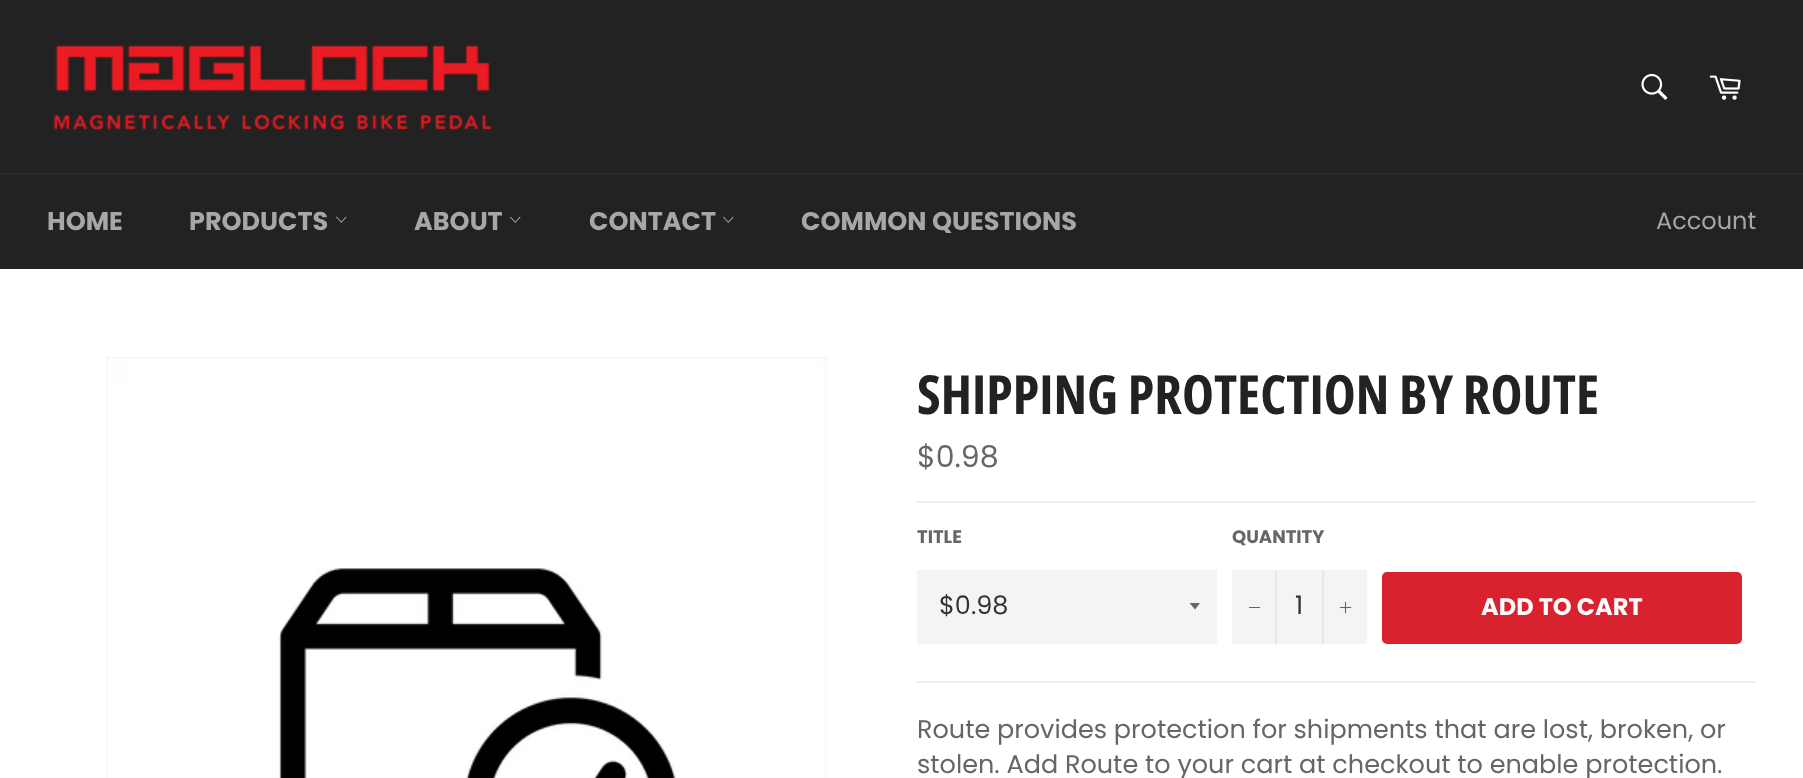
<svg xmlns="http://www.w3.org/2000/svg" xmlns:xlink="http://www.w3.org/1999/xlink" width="1803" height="778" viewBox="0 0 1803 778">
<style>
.cls-1{font:bold 25.5px Poppins;fill:#a7a7a7}
.cls-2{font:24px Poppins;fill:#a7a7a7}
.cls-3{font:bold 54px Open Sans Condensed;fill:#222222}
.cls-4{font:30px Poppins;fill:#666666}
.cls-5{font:bold 18px Poppins;fill:#666666}
.cls-6{font:25.5px Poppins;fill:#333333}
.cls-7{font:bold 24px Poppins;fill:#ffffff}
.cls-8{font:25.5px Poppins;fill:#666666}
</style>
<rect width="100%" height="100%" fill="#222222"/>
<image xlink:href="image0.png" x="53" y="44" width="440" height="87"/>
<image xlink:href="image1.png" x="1641" y="73" width="27" height="27"/>
<image xlink:href="image2.png" x="1709" y="75" width="32" height="25"/>
<rect fill="#2f2f2f" x="0" y="173" width="1803" height="1"/>
<image xlink:href="image3.png" x="336" y="216" width="11" height="7"/>
<image xlink:href="image3.png" x="510" y="216" width="11" height="7"/>
<image xlink:href="image3.png" x="723" y="216" width="11" height="7"/>
<rect fill="#ffffff" x="0" y="269" width="1803" height="509"/>
<image xlink:href="image4.png" x="106" y="357" width="721" height="421"/>
<rect fill="#f0f0f0" x="917" y="501" width="840" height="2"/>
<rect fill="#f4f4f4" x="917" y="570" width="300" height="74"/>
<path fill="#666666" d="M1189.5 603L1195 609.5L1200 603Z"/>
<rect fill="#f4f4f4" x="1232" y="570" width="135" height="74"/>
<rect fill="#e7e7e7" x="1275" y="570" width="2" height="74"/>
<rect fill="#666666" x="1249" y="607" width="11" height="1"/>
<rect fill="#e7e7e7" x="1322" y="570" width="2" height="74"/>
<image xlink:href="image5.png" x="1340" y="602" width="12" height="12"/>
<rect fill="#d8232f" x="1382" y="572" width="360" height="72" rx="5"/>
<rect fill="#f0f0f0" x="917" y="681" width="840" height="2"/>
<text class="cls-1" x="47" y="230">HOME</text>
<text class="cls-1" x="189" y="230">PRODUCTS</text>
<text class="cls-1" x="414" y="230">ABOUT</text>
<text class="cls-1" x="589" y="230">CONTACT</text>
<text class="cls-1" x="801" y="230">COMMON QUESTIONS</text>
<text class="cls-2" x="1656" y="229">Account</text>
<text class="cls-3" x="917" y="414">SHIPPING PROTECTION BY ROUTE</text>
<text class="cls-4" x="917" y="467">$0.98</text>
<text class="cls-5" x="917" y="543">TITLE</text>
<text class="cls-6" x="939" y="614">$0.98</text>
<text class="cls-5" x="1232" y="543">QUANTITY</text>
<text class="cls-6" x="1295" y="614">1</text>
<text class="cls-7" x="1481" y="615">ADD TO CART</text>
<text class="cls-8"><tspan x="917" y="738">Route provides protection for shipments that are lost, broken, or</tspan><tspan x="917" y="773">stolen. Add Route to your cart at checkout to enable protection.</tspan></text>
</svg>
